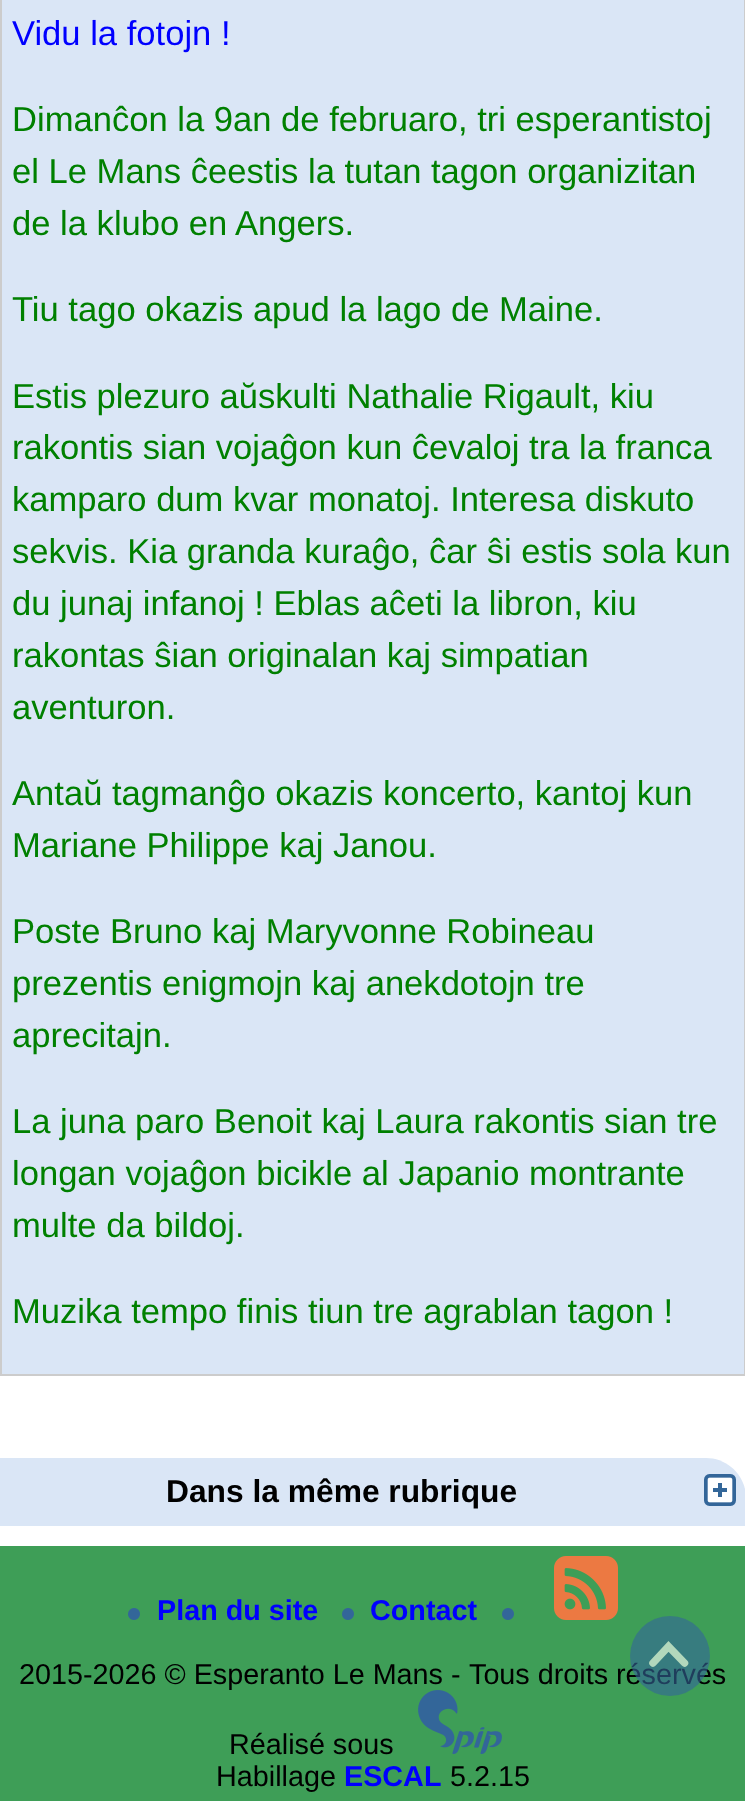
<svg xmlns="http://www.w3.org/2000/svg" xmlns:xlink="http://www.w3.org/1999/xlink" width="745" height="1801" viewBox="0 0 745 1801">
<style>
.cls-1{font:34.6px Liberation Sans;fill:#0000ff}
.cls-2{font:34.6px Liberation Sans;fill:#008000}
.cls-3{font:bold 31.75px Liberation Sans;fill:#000000}
.cls-4{font:bold 28.75px Liberation Sans;fill:#0000ff}
.cls-5{font:28.75px Liberation Sans;fill:#000000}
</style>
<rect width="100%" height="100%" fill="#ffffff"/>
<rect fill="#dae6f6" stroke="#cccccc" stroke-width="2" x="1" y="-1" width="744" height="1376"/>
<path fill="#dae6f6" d="M0 1458H706C728 1458 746 1476 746 1498V1526H0Z"/>
<image xlink:href="image0.png" x="704" y="1474" width="32" height="32"/>
<rect fill="#3e9e57" x="0" y="1546" width="745" height="255"/>
<image xlink:href="image1.png" x="128" y="1608" width="12" height="12"/>
<image xlink:href="image1.png" x="342" y="1608" width="12" height="12"/>
<image xlink:href="image1.png" x="502" y="1608" width="12" height="12"/>
<image xlink:href="image2.png" x="554" y="1556" width="64" height="64"/>
<image xlink:href="image3.png" x="418" y="1690" width="84" height="64"/>
<text class="cls-1" x="12" y="45">Vidu la fotojn !</text>
<text class="cls-2"><tspan x="12" y="131">Dimanĉon la 9an de februaro, tri esperantistoj</tspan><tspan x="12" y="183">el Le Mans ĉeestis la tutan tagon organizitan</tspan><tspan x="12" y="235">de la klubo en Angers.</tspan></text>
<text class="cls-2" x="12" y="321">Tiu tago okazis apud la lago de Maine.</text>
<text class="cls-2"><tspan x="12" y="408">Estis plezuro aŭskulti Nathalie Rigault, kiu</tspan><tspan x="12" y="459">rakontis sian vojaĝon kun ĉevaloj tra la franca</tspan><tspan x="12" y="511">kamparo dum kvar monatoj. Interesa diskuto</tspan><tspan x="12" y="563">sekvis. Kia granda kuraĝo, ĉar ŝi estis sola kun</tspan><tspan x="12" y="615">du junaj infanoj ! Eblas aĉeti la libron, kiu</tspan><tspan x="12" y="667">rakontas ŝian originalan kaj simpatian</tspan><tspan x="12" y="719">aventuron.</tspan></text>
<text class="cls-2"><tspan x="12" y="805">Antaŭ tagmanĝo okazis koncerto, kantoj kun</tspan><tspan x="12" y="857">Mariane Philippe kaj Janou.</tspan></text>
<text class="cls-2"><tspan x="12" y="943">Poste Bruno kaj Maryvonne Robineau</tspan><tspan x="12" y="995">prezentis enigmojn kaj anekdotojn tre</tspan><tspan x="12" y="1047">aprecitajn.</tspan></text>
<text class="cls-2"><tspan x="12" y="1133">La juna paro Benoit kaj Laura rakontis sian tre</tspan><tspan x="12" y="1185">longan vojaĝon bicikle al Japanio montrante</tspan><tspan x="12" y="1237">multe da bildoj.</tspan></text>
<text class="cls-2" x="12" y="1323">Muzika tempo finis tiun tre agrablan tagon !</text>
<text class="cls-3" x="166" y="1502">Dans la même rubrique</text>
<text class="cls-4" x="157" y="1620">Plan du site</text>
<text class="cls-4" x="370" y="1620">Contact</text>
<text class="cls-5" x="19" y="1684">2015-2026 © Esperanto Le Mans -</text>
<text class="cls-5" x="469" y="1684">Tous droits réservés</text>
<circle fill="#336699" fill-opacity="0.6" cx="670" cy="1656" r="40"/>
<path fill="none" stroke="#b2d8bc" stroke-width="7.5" stroke-linecap="round" d="M653 1663L668.5 1646.5L684.5 1663"/>
<text class="cls-5" x="229" y="1754">Réalisé sous</text>
<text class="cls-5" x="216" y="1786">Habillage</text>
<text class="cls-4" x="344" y="1786">ESCAL</text>
<text class="cls-5" x="450" y="1786">5.2.15</text>
</svg>
